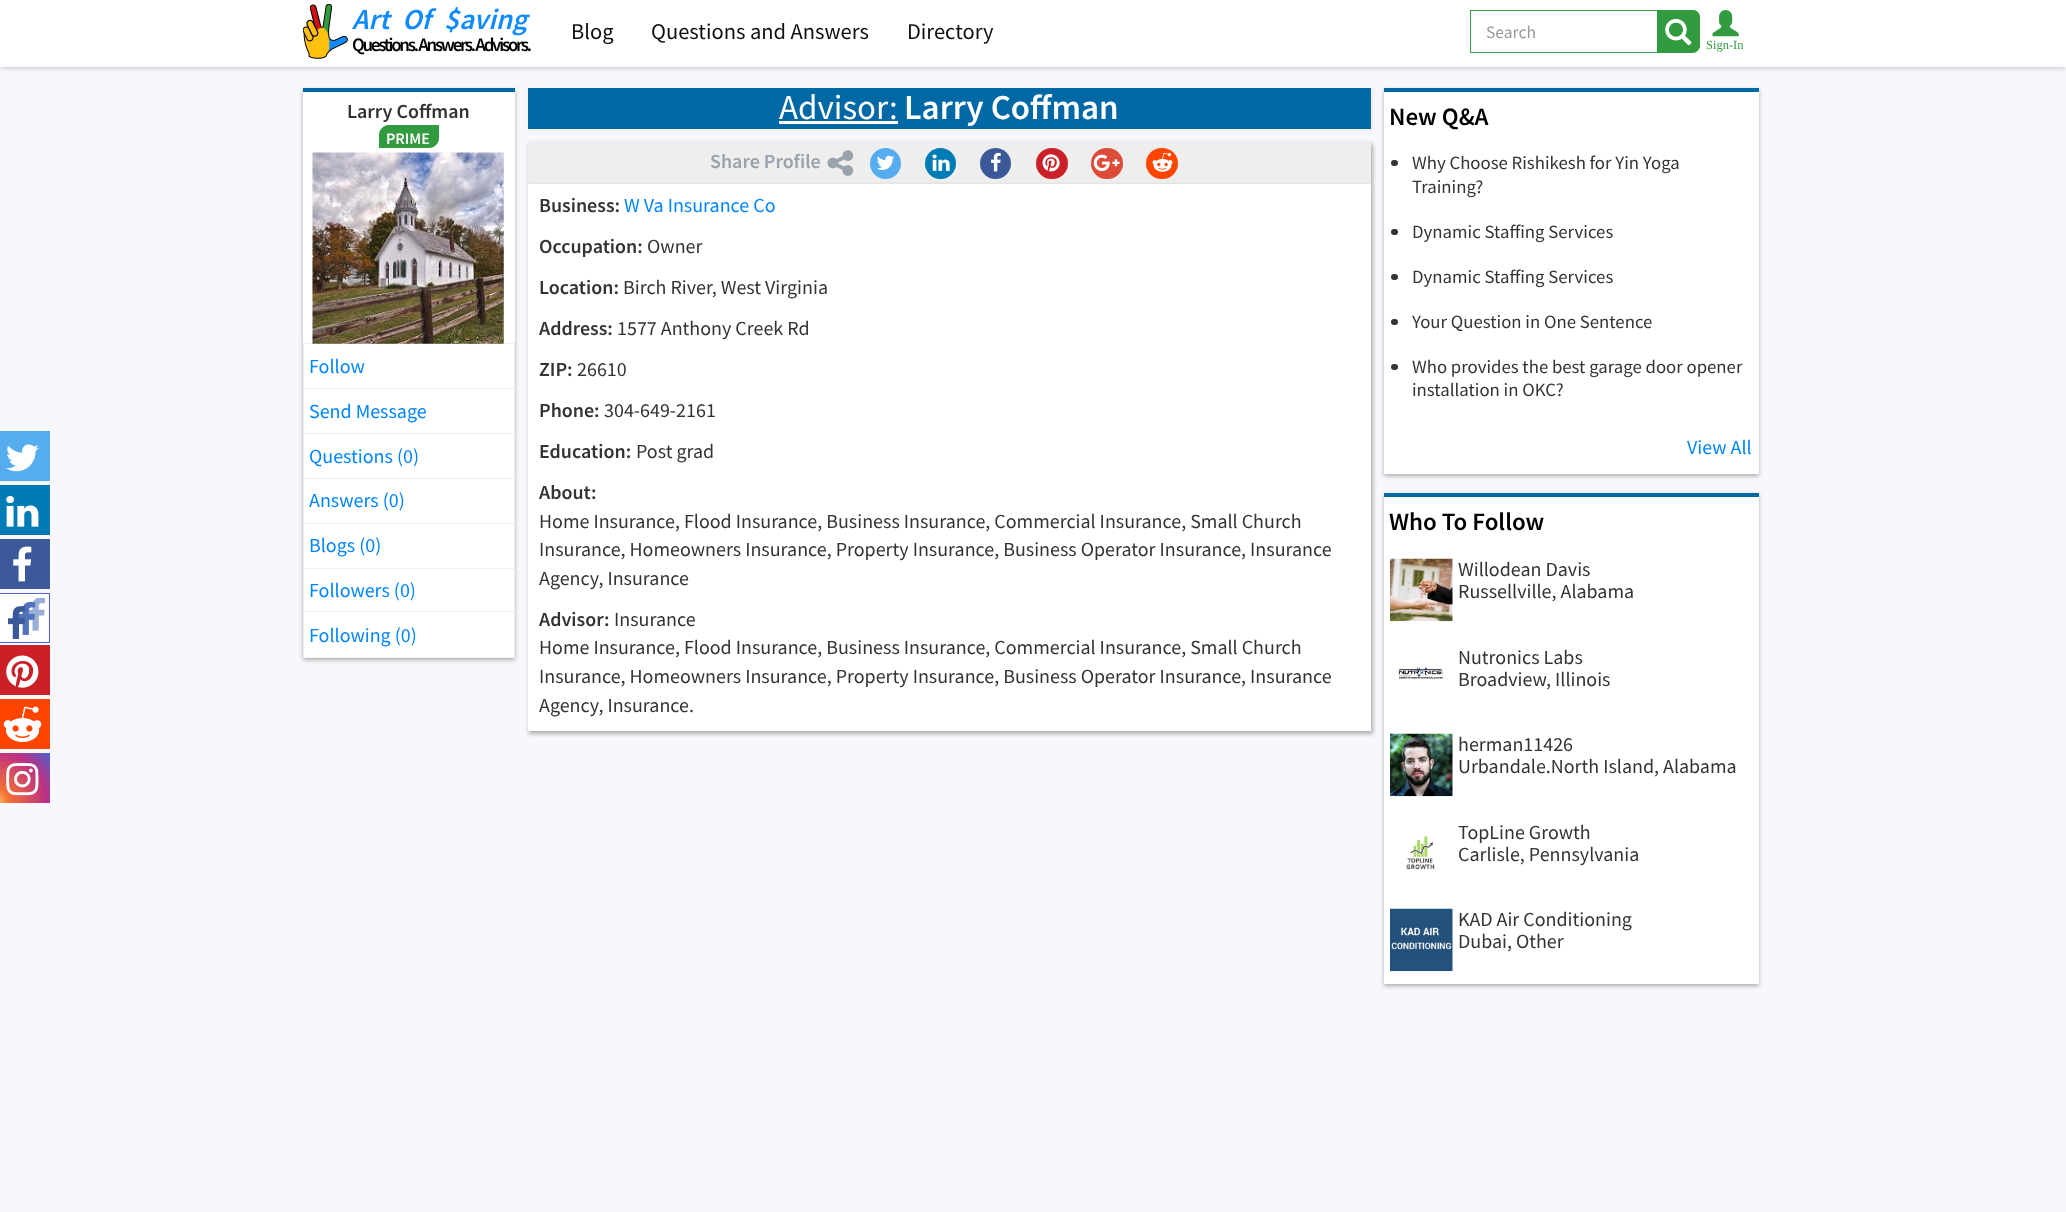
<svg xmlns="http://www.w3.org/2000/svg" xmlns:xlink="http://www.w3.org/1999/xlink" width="2066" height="1212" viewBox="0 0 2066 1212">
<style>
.cls-1{font:italic 600 29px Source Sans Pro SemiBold;fill:#0f8aff}
.cls-2{font:600 19px Source Sans Pro SemiBold;letter-spacing:-2.25px;fill:#000000}
.cls-3{font:22.5px Source Sans Pro;fill:#101010}
.cls-4{font:17.5px Source Sans Pro;fill:#999999}
.cls-5{font:12.5px Liberation Serif;fill:#329b3f}
.cls-6{font:600 20px Source Sans Pro SemiBold;fill:#333333}
.cls-7{font:600 16px Source Sans Pro SemiBold;fill:#ffffff}
.cls-8{font:20px Source Sans Pro;fill:#0085ff}
.cls-9{font:35px Source Sans Pro;fill:#ffffff}
.cls-10{font:600 35px Source Sans Pro SemiBold;fill:#ffffff}
.cls-11{font:600 20px Source Sans Pro SemiBold;fill:#9aa2ab}
.cls-12{font:20px Source Sans Pro;fill:#333333}
.cls-13{font:600 25px Source Sans Pro SemiBold;fill:#000000}
.cls-14{font:18.75px Source Sans Pro;fill:#333333}
</style>
<defs>
<radialGradient id="g1" gradientUnits="userSpaceOnUse" cx="-6.2" cy="803" r="75"><stop offset="0" stop-color="#fed576"/><stop offset="0.2" stop-color="#f47133"/><stop offset="0.7" stop-color="#bc3081"/><stop offset="1" stop-color="#4c63d2"/></radialGradient>
</defs>
<rect width="100%" height="100%" fill="#f8f8fc"/>
<rect fill="#000000" fill-opacity="0.2" filter="blur(2.5px)" x="0" y="1" width="2066" height="67"/>
<rect fill="#ffffff" x="0" y="0" width="2066" height="67"/>
<image xlink:href="image0.png" x="303" y="4" width="45" height="55"/>
<rect fill="none" stroke="#329b3f" x="1470.5" y="10.5" width="187" height="42"/>
<path fill="#329b3f" d="M1658 10H1692C1696.5 10 1700 13.5 1700 18V45C1700 49.5 1696.5 53 1692 53H1658Z"/>
<path fill="#329b3f" fill-rule="evenodd" d="M1658 10H1692C1697 10 1700 13 1700 18V45C1700 49 1697 52 1692 52H1658ZM1658 11H1692C1696 11 1699 14 1699 18V45C1699 48 1696 51 1692 51H1658Z"/>
<image xlink:href="image1.png" x="1665" y="19" width="27" height="27"/>
<image xlink:href="image2.png" x="1712" y="10" width="27" height="27"/>
<rect fill="#55acee" x="0" y="431" width="50" height="50"/>
<image xlink:href="image3.png" x="6" y="444" width="33" height="28"/>
<rect fill="#007bb5" x="0" y="485" width="50" height="50"/>
<image xlink:href="image4.png" x="6" y="496" width="33" height="31"/>
<rect fill="#3b5998" x="0" y="539" width="50" height="50"/>
<image xlink:href="image5.png" x="13" y="546" width="19" height="36"/>
<rect fill="#ffffff" x="0" y="594" width="49" height="48"/>
<image xlink:href="image6.png" x="8" y="598" width="37" height="41"/>
<rect fill="none" stroke="#4c63d2" x="-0.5" y="593.5" width="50" height="49"/>
<rect fill="#cb2027" x="0" y="645" width="50" height="50"/>
<image xlink:href="image7.png" x="6" y="655" width="33" height="33"/>
<rect fill="#ff4500" x="0" y="699" width="50" height="50"/>
<image xlink:href="image8.png" x="3" y="706" width="39" height="36"/>
<rect fill="url(#g1)" x="0" y="753" width="50" height="50"/>
<image xlink:href="image9.png" x="6" y="763" width="33" height="33"/>
<rect fill="#000000" fill-opacity="0.3" filter="blur(2px)" x="303" y="90" width="212" height="570"/>
<rect fill="#ffffff" x="303" y="92" width="212" height="296"/>
<rect fill="#0068a4" x="303" y="88" width="212" height="4"/>
<path fill="#329b3f" d="M389 125H439V138C439 143.5 434.5 148 429 148H379V135C379 129.5 383.5 125 389 125Z"/>
<rect fill="none" stroke="#eeeeee" x="303.5" y="343.5" width="211" height="45"/>
<image xlink:href="image10.png" x="312" y="152" width="192" height="192"/>
<rect fill="#ffffff" stroke="#eeeeee" x="303.5" y="388.5" width="211" height="45"/>
<rect fill="#ffffff" stroke="#eeeeee" x="303.5" y="433.5" width="211" height="45"/>
<rect fill="#ffffff" stroke="#eeeeee" x="303.5" y="478.5" width="211" height="45"/>
<rect fill="#ffffff" stroke="#eeeeee" x="303.5" y="523.5" width="211" height="45"/>
<rect fill="#ffffff" x="304" y="569" width="210" height="42"/>
<rect fill="none" stroke="#eeeeee" x="303.5" y="568.5" width="211" height="44"/>
<rect fill="#ffffff" stroke="#eeeeee" x="303.5" y="611.5" width="211" height="46"/>
<rect fill="#eeeeee" filter="blur(2px)" x="529" y="90" width="844" height="41"/>
<rect fill="#0068a4" x="528" y="88" width="843" height="41"/>
<rect fill="#ffffff" x="779" y="121" width="119" height="3"/>
<rect fill="#000000" fill-opacity="0.3" filter="blur(2px)" x="529" y="144" width="844" height="42"/>
<rect fill="#eeeeee" x="528" y="141" width="843" height="43"/>
<image xlink:href="image11.png" x="827" y="150" width="27" height="26"/>
<circle fill="#55acee" cx="885.5" cy="163.5" r="15.5"/>
<image xlink:href="image12.png" x="877" y="155" width="18" height="15"/>
<circle fill="#007bb5" cx="940.5" cy="163.5" r="15.5"/>
<image xlink:href="image13.png" x="932" y="154" width="18" height="17"/>
<circle fill="#3b5998" cx="995.5" cy="163.5" r="15.5"/>
<image xlink:href="image14.png" x="991" y="152" width="10" height="20"/>
<rect fill="#cb2027" x="1036" y="148" width="32" height="31" rx="15.5"/>
<image xlink:href="image15.png" x="1042" y="154" width="18" height="18"/>
<rect fill="#dd4b39" x="1091" y="148" width="32" height="31" rx="15.5"/>
<image xlink:href="image16.png" x="1093" y="154" width="27" height="17"/>
<rect fill="#ff4500" x="1146" y="148" width="32" height="31" rx="15.5"/>
<image xlink:href="image17.png" x="1152" y="152" width="21" height="20"/>
<rect fill="#000000" fill-opacity="0.3" filter="blur(2px)" x="529" y="186" width="844" height="548"/>
<rect fill="#ffffff" x="528" y="184" width="843" height="547"/>
<rect fill="#000000" fill-opacity="0.3" filter="blur(2px)" x="1384" y="90" width="375" height="386"/>
<rect fill="#ffffff" x="1384" y="92" width="375" height="382"/>
<rect fill="#0068a4" x="1384" y="88" width="375" height="4"/>
<rect fill="#333333" x="1391" y="160" width="7" height="6" rx="3"/>
<rect fill="#333333" x="1391" y="229" width="7" height="6" rx="3"/>
<rect fill="#333333" x="1391" y="274" width="7" height="6" rx="3"/>
<rect fill="#333333" x="1391" y="319" width="7" height="6" rx="3"/>
<rect fill="#333333" x="1391" y="364" width="7" height="6" rx="3"/>
<rect fill="#000000" fill-opacity="0.3" filter="blur(2px)" x="1384" y="495" width="375" height="491"/>
<rect fill="#ffffff" x="1384" y="497" width="375" height="487"/>
<rect fill="#0068a4" x="1384" y="493" width="375" height="4"/>
<image xlink:href="image18.png" x="1390" y="558" width="63" height="64"/>
<image xlink:href="image19.png" x="1397" y="666" width="47" height="13"/>
<image xlink:href="image20.png" x="1390" y="733" width="63" height="64"/>
<image xlink:href="image21.png" x="1406" y="836" width="29" height="34"/>
<image xlink:href="image22.png" x="1390" y="908" width="63" height="64"/>
<text class="cls-1" x="352" y="29">Art</text>
<text class="cls-1" x="402" y="29">Of</text>
<text class="cls-1" x="444" y="29">$aving</text>
<text class="cls-2" x="352" y="51">Questions. Answers. Advisors.</text>
<text class="cls-3" x="571" y="39">Blog</text>
<text class="cls-3" x="651" y="39">Questions and Answers</text>
<text class="cls-3" x="907" y="39">Directory</text>
<text class="cls-4" x="1486" y="38">Search</text>
<text class="cls-5" x="1706" y="49">Sign-In</text>
<text class="cls-6" x="347" y="118">Larry Coffman</text>
<text class="cls-7" x="386" y="144">PRIME</text>
<text class="cls-8" x="309" y="373">Follow</text>
<text class="cls-8" x="309" y="418">Send Message</text>
<text class="cls-8" x="309" y="463">Questions (0)</text>
<text class="cls-8" x="309" y="507">Answers (0)</text>
<text class="cls-8" x="309" y="552">Blogs (0)</text>
<text class="cls-8" x="309" y="597">Followers (0)</text>
<text class="cls-8" x="309" y="642">Following (0)</text>
<text class="cls-9" x="779" y="119">Advisor:</text>
<text class="cls-10" x="904" y="119">Larry Coffman</text>
<text class="cls-11" x="710" y="168">Share Profile</text>
<text class="cls-6" x="539" y="212">Business:</text>
<text class="cls-8" x="624" y="212">W Va Insurance Co</text>
<text class="cls-6" x="539" y="253">Occupation:</text>
<text class="cls-12" x="647" y="253">Owner</text>
<text class="cls-6" x="539" y="294">Location:</text>
<text class="cls-12" x="623" y="294">Birch River, West Virginia</text>
<text class="cls-6" x="539" y="335">Address:</text>
<text class="cls-12" x="617" y="335">1577 Anthony Creek Rd</text>
<text class="cls-6" x="539" y="376">ZIP:</text>
<text class="cls-12" x="577" y="376">26610</text>
<text class="cls-6" x="539" y="417">Phone:</text>
<text class="cls-12" x="604" y="417">304-649-2161</text>
<text class="cls-6" x="539" y="458">Education:</text>
<text class="cls-12" x="636" y="458">Post grad</text>
<text class="cls-6" x="539" y="499">About:</text>
<text class="cls-12"><tspan x="539" y="528">Home Insurance, Flood Insurance, Business Insurance, Commercial Insurance, Small Church</tspan><tspan x="539" y="556">Insurance, Homeowners Insurance, Property Insurance, Business Operator Insurance, Insurance</tspan><tspan x="539" y="585">Agency, Insurance</tspan></text>
<text class="cls-6" x="539" y="626">Advisor:</text>
<text class="cls-12" x="614" y="626">Insurance</text>
<text class="cls-12"><tspan x="539" y="654">Home Insurance, Flood Insurance, Business Insurance, Commercial Insurance, Small Church</tspan><tspan x="539" y="683">Insurance, Homeowners Insurance, Property Insurance, Business Operator Insurance, Insurance</tspan><tspan x="539" y="712">Agency, Insurance.</tspan></text>
<text class="cls-13" x="1389" y="125">New Q&amp;A</text>
<text class="cls-14"><tspan x="1412" y="169">Why Choose Rishikesh for Yin Yoga</tspan><tspan x="1412" y="193">Training?</tspan></text>
<text class="cls-14" x="1412" y="238">Dynamic Staffing Services</text>
<text class="cls-14" x="1412" y="283">Dynamic Staffing Services</text>
<text class="cls-14" x="1412" y="328">Your Question in One Sentence</text>
<text class="cls-14"><tspan x="1412" y="373">Who provides the best garage door opener</tspan><tspan x="1412" y="396">installation in OKC?</tspan></text>
<text class="cls-8" x="1687" y="454">View All</text>
<text class="cls-13" x="1389" y="530">Who To Follow</text>
<text class="cls-12"><tspan x="1458" y="576">Willodean Davis</tspan><tspan x="1458" y="598">Russellville, Alabama</tspan></text>
<text class="cls-12"><tspan x="1458" y="664">Nutronics Labs</tspan><tspan x="1458" y="686">Broadview, Illinois</tspan></text>
<text class="cls-12"><tspan x="1458" y="751">herman11426</tspan><tspan x="1458" y="773">Urbandale.North Island, Alabama</tspan></text>
<text class="cls-12"><tspan x="1458" y="839">TopLine Growth</tspan><tspan x="1458" y="861">Carlisle, Pennsylvania</tspan></text>
<text class="cls-12"><tspan x="1458" y="926">KAD Air Conditioning</tspan><tspan x="1458" y="948">Dubai, Other</tspan></text>
</svg>
